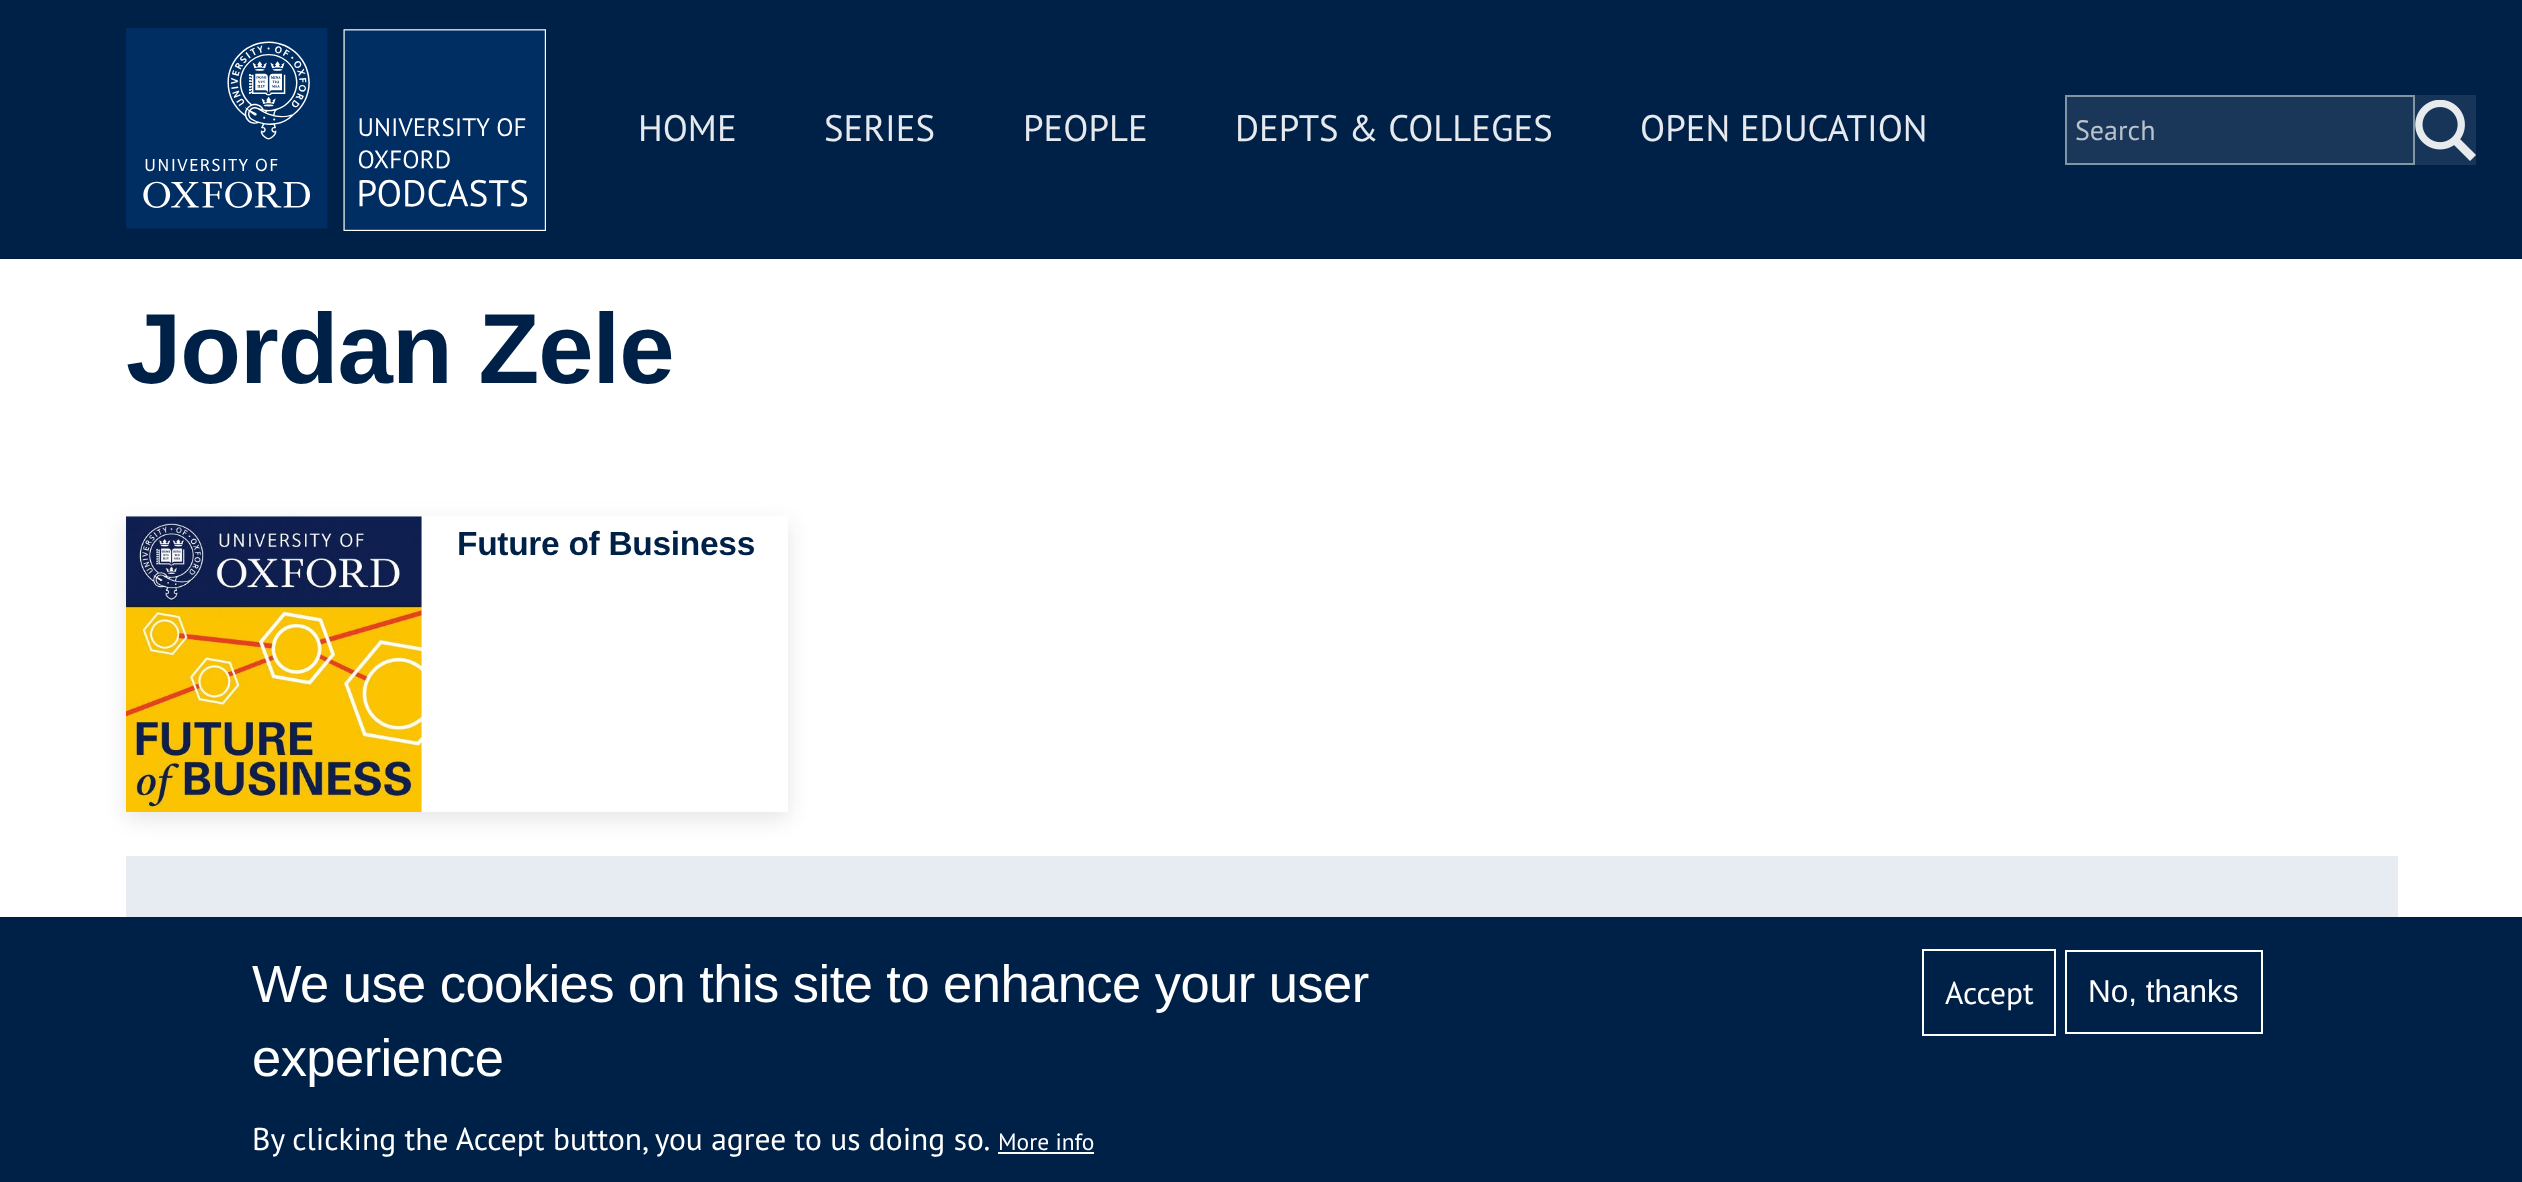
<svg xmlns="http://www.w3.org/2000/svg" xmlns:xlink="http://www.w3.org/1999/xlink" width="2522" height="1182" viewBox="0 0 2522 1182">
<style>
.cls-1{font:36.75px PT Sans;fill:#e6e9ed}
.cls-2{font:28px PT Sans;fill:#bac3cd}
.cls-3{font:bold 99.5px Liberation Sans;letter-spacing:-1px;fill:#002147}
.cls-4{font:bold 33.5px Liberation Sans;letter-spacing:-0.3px;fill:#002147}
.cls-5{font:52.5px Liberation Sans;letter-spacing:-0.55px;fill:#ffffff}
.cls-6{font:31.5px PT Sans;fill:#ffffff}
.cls-7{font:23.5px PT Sans;fill:#ffffff}
.cls-8{font:31.5px Liberation Sans;fill:#ffffff}
</style>
<defs>
<clipPath id="clip1"><path d="M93 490H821V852H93ZM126 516H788V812H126Z" clip-rule="evenodd"/></clipPath>
</defs>
<rect width="100%" height="100%" fill="#ffffff"/>
<rect fill="#002147" x="0" y="0" width="2522" height="259"/>
<image xlink:href="image0.png" x="126" y="28" width="420" height="203"/>
<rect fill="#1a3759" stroke="#8196a2" stroke-width="2" x="2066" y="96" width="348" height="68"/>
<rect fill="#173558" x="2415" y="95" width="61" height="70"/>
<image xlink:href="image1.png" x="2415" y="100" width="61" height="61"/>
<g clip-path="url(#clip1)">
<rect fill="#000000" fill-opacity="0.1" filter="blur(10.5px)" x="126" y="523" width="662" height="296"/>
</g>
<image xlink:href="image2.png" x="126" y="516" width="296" height="296"/>
<rect fill="#e7ecf3" x="126" y="856" width="2272" height="61"/>
<rect fill="#002147" x="0" y="917" width="2522" height="265"/>
<rect fill="#ffffff" x="998" y="1152" width="96" height="2"/>
<rect fill="none" stroke="#ffffff" stroke-width="2" x="1923" y="950" width="132" height="85"/>
<rect fill="none" stroke="#ffffff" stroke-width="2" x="2066" y="951" width="196" height="82"/>
<text class="cls-1" x="638" y="141">HOME</text>
<text class="cls-1" x="824" y="141">SERIES</text>
<text class="cls-1" x="1023" y="141">PEOPLE</text>
<text class="cls-1" x="1235" y="141">DEPTS &amp; COLLEGES</text>
<text class="cls-1" x="1640" y="141">OPEN EDUCATION</text>
<text class="cls-2" x="2075" y="140">Search</text>
<text class="cls-3" x="126" y="383">Jordan Zele</text>
<text class="cls-4" x="457" y="555">Future of Business</text>
<text class="cls-5"><tspan x="252" y="1002">We use cookies on this site to enhance your user</tspan><tspan x="252" y="1076">experience</tspan></text>
<text class="cls-6" x="252" y="1150">By clicking the Accept button, you agree to us doing so.</text>
<text class="cls-7" x="998" y="1150">More info</text>
<text class="cls-6" x="1945" y="1004">Accept</text>
<text class="cls-8" x="2088" y="1002">No, thanks</text>
</svg>
